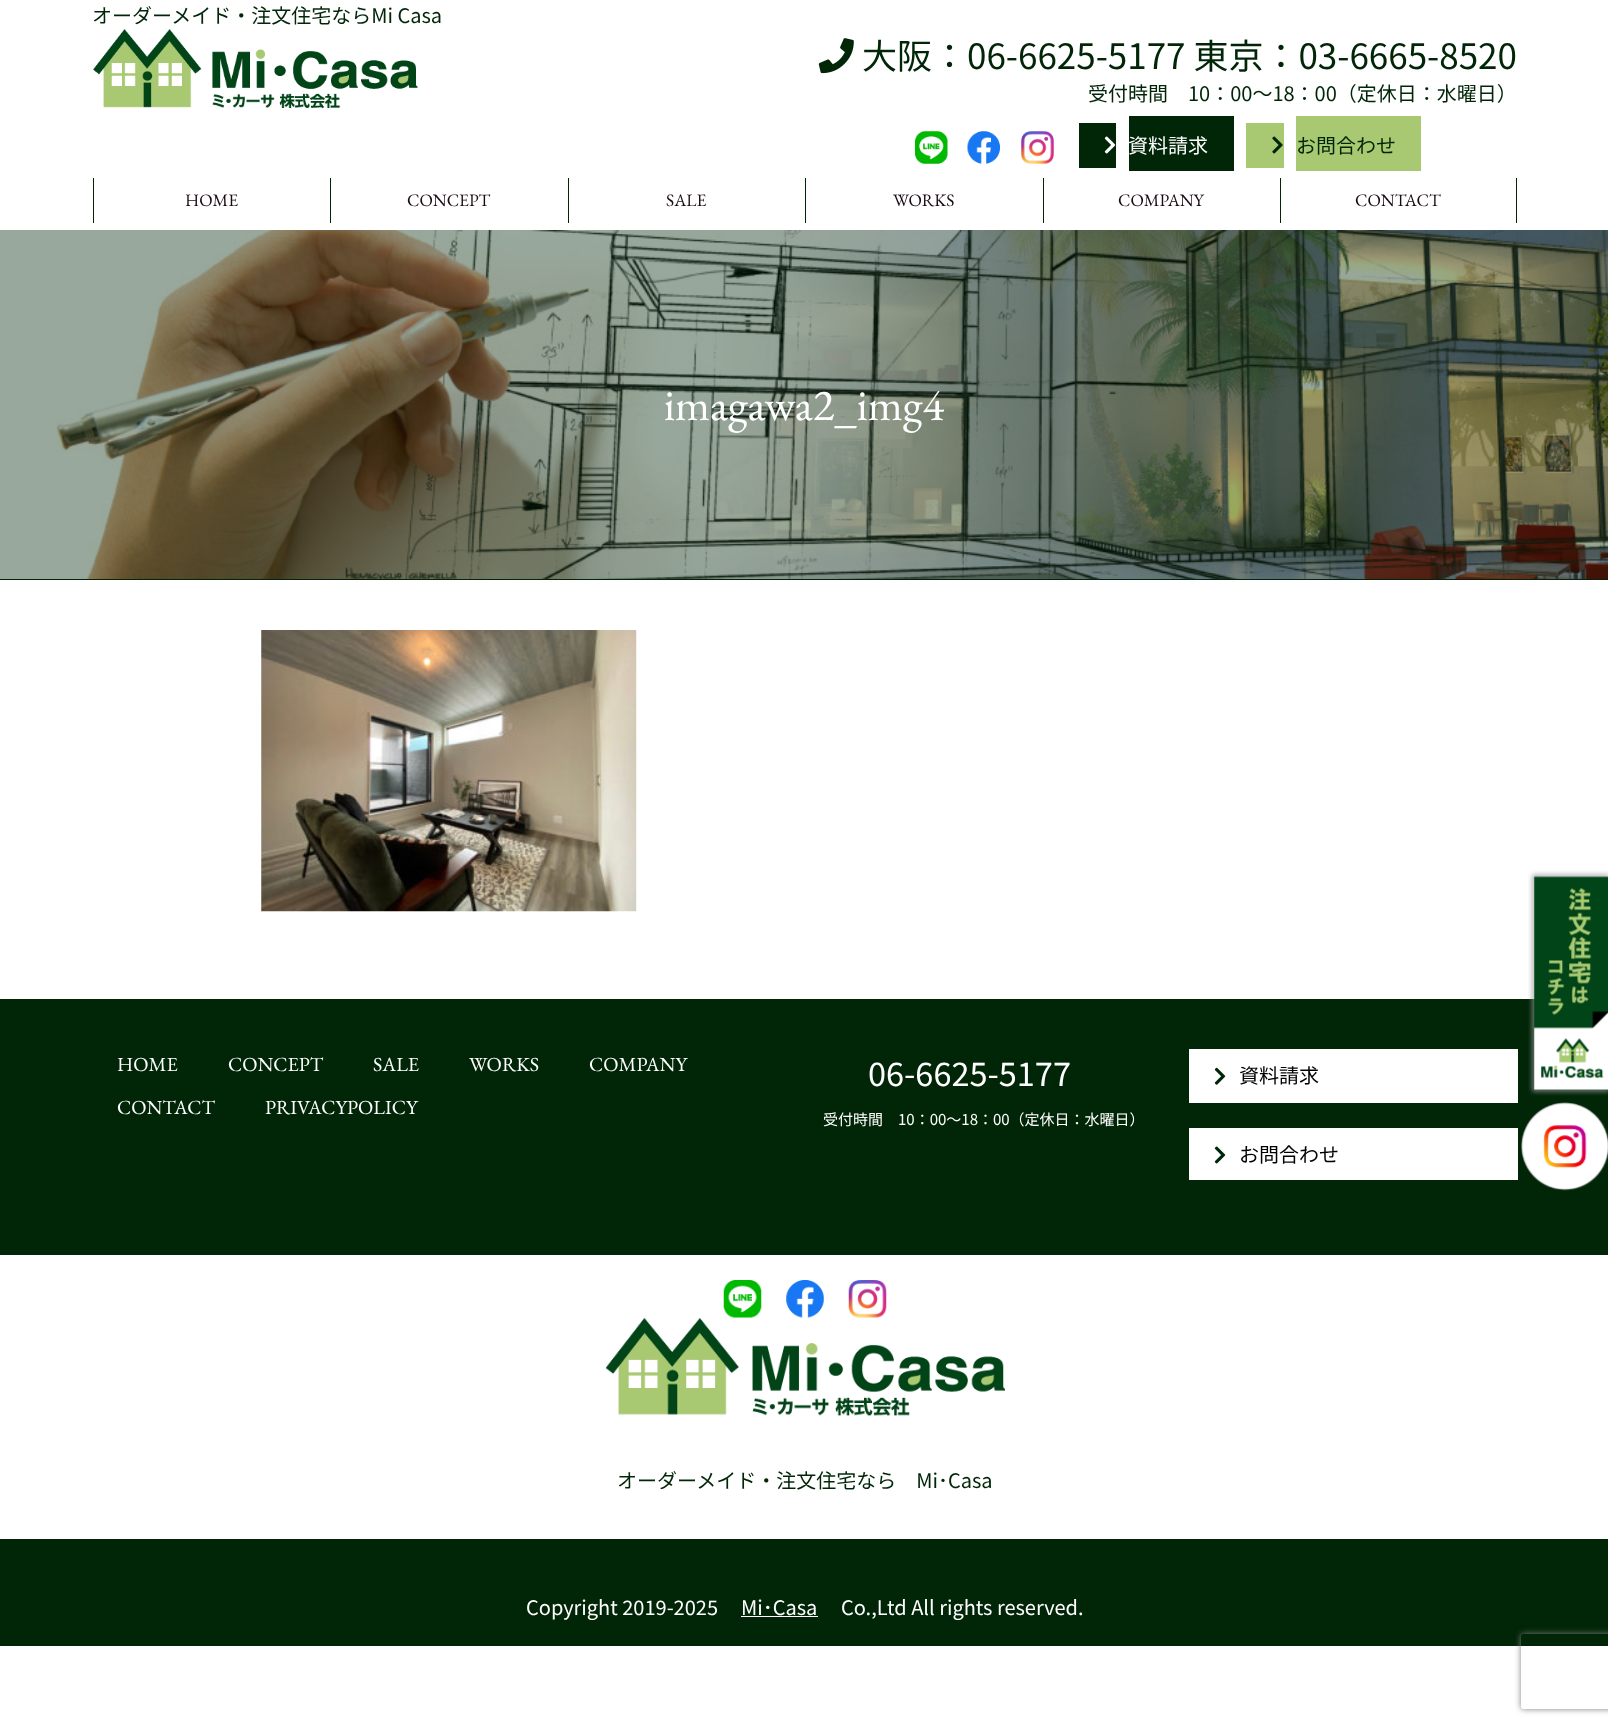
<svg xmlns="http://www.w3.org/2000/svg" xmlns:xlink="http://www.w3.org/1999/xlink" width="1608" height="1726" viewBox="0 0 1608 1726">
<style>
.cls-1{font:100 20px Noto Sans JP;fill:#002507}
.cls-2{font:100 35px Noto Sans JP;fill:#002507}
.cls-3{font:100 20px Noto Sans JP;fill:#ffffff}
.cls-4{font:17.5px EB Garamond;fill:#190913}
.cls-5{font:45px EB Garamond;fill:#ffffff}
.cls-6{font:20px EB Garamond;fill:#ffffff}
.cls-7{font:100 32.5px Noto Sans JP;fill:#ffffff}
.cls-8{font:100 15px Noto Sans JP;fill:#ffffff}
.cls-9{font:100 20px Noto Sans JP;fill:#000000}
</style>
<defs>
<clipPath id="clip1"><path d="M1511 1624H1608V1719H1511ZM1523.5 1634H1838.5C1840 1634 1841 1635 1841 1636.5V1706.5C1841 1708 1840 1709 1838.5 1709H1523.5C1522 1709 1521 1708 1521 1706.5V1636.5C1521 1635 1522 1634 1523.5 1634Z" clip-rule="evenodd"/></clipPath>
</defs>
<rect width="100%" height="100%" fill="#ffffff"/>
<rect fill="#99a89c" x="0" y="230" width="55" height="349"/>
<image xlink:href="image0.png" x="93" y="28" width="325" height="81"/>
<image xlink:href="image1.png" x="818" y="38" width="36" height="36"/>
<image xlink:href="image2.png" x="915" y="131" width="33" height="33"/>
<image xlink:href="image3.png" x="967" y="131" width="33" height="33"/>
<image xlink:href="image4.png" x="1021" y="131" width="33" height="33"/>
<rect fill="#002507" x="1079" y="123" width="37" height="45"/>
<rect fill="#002507" x="1129" y="116" width="105" height="55"/>
<image xlink:href="image5.png" x="1104" y="136" width="12" height="18"/>
<rect fill="#a8c972" x="1246" y="123" width="38" height="45"/>
<rect fill="#a8c972" x="1296" y="116" width="125" height="55"/>
<image xlink:href="image6.png" x="1272" y="136" width="11" height="18"/>
<rect fill="#002507" x="93" y="178" width="1" height="45"/>
<rect fill="#002507" x="330" y="178" width="1" height="45"/>
<rect fill="#002507" x="568" y="178" width="1" height="45"/>
<rect fill="#002507" x="805" y="178" width="1" height="45"/>
<rect fill="#002507" x="1043" y="178" width="1" height="45"/>
<rect fill="#002507" x="1516" y="178" width="1" height="45"/>
<rect fill="#002507" x="1280" y="178" width="1" height="45"/>
<image xlink:href="image7.png" x="55" y="230" width="1553" height="349"/>
<rect fill="#002507" x="0" y="579" width="1608" height="1"/>
<image xlink:href="image8.png" x="261" y="630" width="376" height="282"/>
<rect fill="#002507" x="0" y="999" width="1608" height="256"/>
<rect fill="#ffffff" x="1189" y="1049" width="329" height="54"/>
<image xlink:href="image9.png" x="1214" y="1067" width="12" height="18"/>
<rect fill="#ffffff" x="1189" y="1128" width="329" height="52"/>
<image xlink:href="image10.png" x="1214" y="1146" width="12" height="18"/>
<image xlink:href="image11.png" x="1528" y="870" width="80" height="226"/>
<image xlink:href="image12.png" x="1521" y="1102" width="87" height="89"/>
<image xlink:href="image13.png" x="723" y="1280" width="39" height="38"/>
<image xlink:href="image14.png" x="786" y="1280" width="38" height="38"/>
<image xlink:href="image15.png" x="848" y="1280" width="39" height="38"/>
<image xlink:href="image16.png" x="605" y="1317" width="400" height="99"/>
<rect fill="#002507" x="0" y="1539" width="1608" height="107"/>
<rect fill="#ffffff" x="741" y="1616" width="77" height="1"/>
<g clip-path="url(#clip1)">
<rect fill="#808080" filter="blur(3px)" x="1521" y="1634" width="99" height="75" rx="2.5"/>
</g>
<text class="cls-1" x="92" y="23">オーダーメイド・注文住宅ならMi Casa</text>
<text class="cls-2" x="862" y="69">大阪：06-6625-5177 東京：03-6665-8520</text>
<text class="cls-1" x="1088" y="101">受付時間　10：00～18：00（定休日：水曜日）</text>
<text class="cls-3" x="1128" y="153">資料請求</text>
<text class="cls-1" x="1296" y="153">お問合わせ</text>
<text class="cls-4" x="185" y="206">HOME</text>
<text class="cls-4" x="407" y="206">CONCEPT</text>
<text class="cls-4" x="666" y="206">SALE</text>
<text class="cls-4" x="893" y="206">WORKS</text>
<text class="cls-4" x="1118" y="206">COMPANY</text>
<text class="cls-4" x="1355" y="206">CONTACT</text>
<text class="cls-5" x="664" y="420">imagawa2_img4</text>
<text class="cls-6" x="117" y="1071">HOME</text>
<text class="cls-6" x="228" y="1071">CONCEPT</text>
<text class="cls-6" x="373" y="1071">SALE</text>
<text class="cls-6" x="469" y="1071">WORKS</text>
<text class="cls-6" x="589" y="1071">COMPANY</text>
<text class="cls-6" x="117" y="1114">CONTACT</text>
<text class="cls-6" x="265" y="1114">PRIVACYPOLICY</text>
<text class="cls-7" x="868" y="1086">06-6625-5177</text>
<text class="cls-8" x="823" y="1125">受付時間　10：00～18：00（定休日：水曜日）</text>
<text class="cls-9" x="1239" y="1083">資料請求</text>
<text class="cls-9" x="1239" y="1162">お問合わせ</text>
<text class="cls-1" x="617" y="1488">オーダーメイド・注文住宅なら　Mi･Casa</text>
<text class="cls-3" x="526" y="1615">Copyright 2019-2025</text>
<text class="cls-3" x="741" y="1615">Mi･Casa</text>
<text class="cls-3" x="841" y="1615">Co.,Ltd All rights reserved.</text>
</svg>
